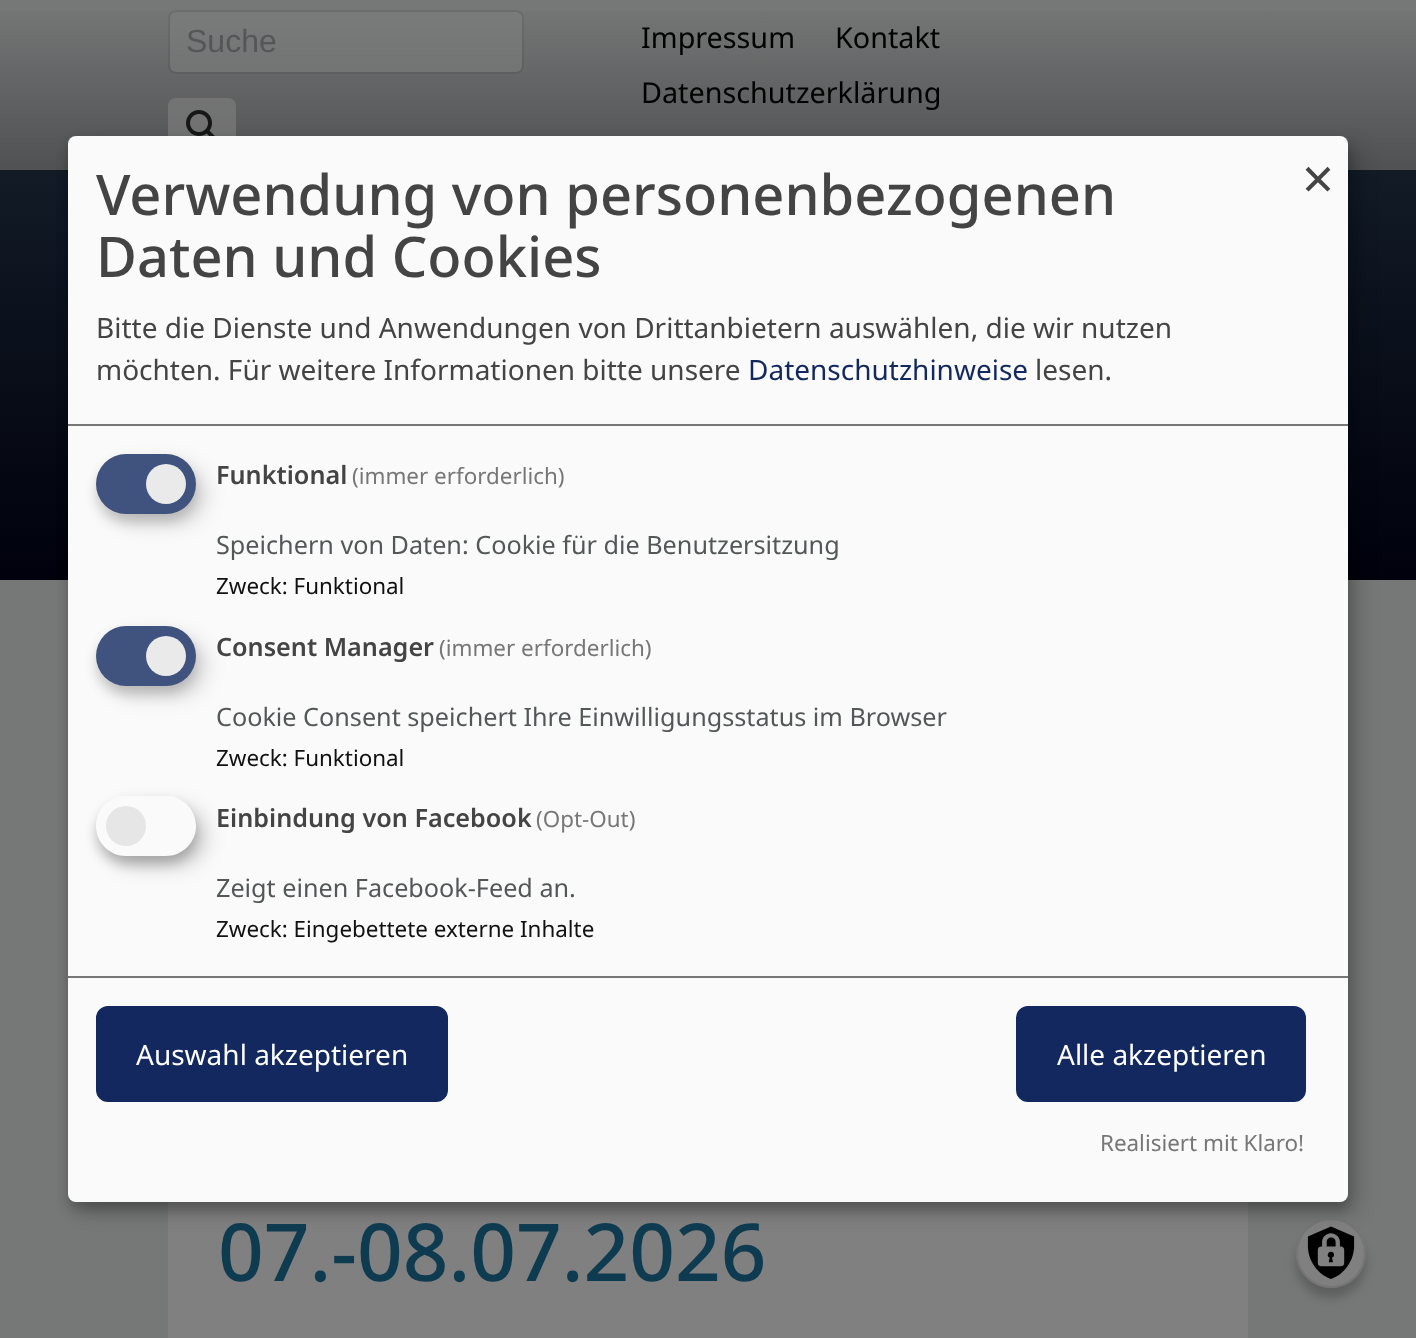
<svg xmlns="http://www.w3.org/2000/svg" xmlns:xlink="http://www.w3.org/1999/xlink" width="1416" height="1338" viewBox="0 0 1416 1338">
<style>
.cls-1{font:32px Liberation Sans;fill:#545758}
.cls-2{font:28.75px Noto Sans;fill:#000000}
.cls-3{font:500 80px Noto Sans;fill:#0e3b50}
.cls-4{font:500 56px Noto Sans;fill:#444444}
.cls-5{font:28px Noto Sans;fill:#444444}
.cls-6{font:28px Noto Sans;fill:#12285f}
.cls-7{font:56px Noto Sans;fill:#444444}
.cls-8{font:600 25.2px Noto Sans;fill:#444444}
.cls-9{font:22.4px Noto Sans;fill:#777777}
.cls-10{font:25.2px Noto Sans;fill:#545758}
.cls-11{font:22.4px Noto Sans;fill:#111111}
.cls-12{font:28px Noto Sans;fill:#ffffff}
</style>
<defs>
<linearGradient id="g1" gradientUnits="userSpaceOnUse" x1="708" y1="0" x2="708" y2="170"><stop offset="0" stop-color="#767878"/><stop offset="1" stop-color="#4f5152"/></linearGradient>
<linearGradient id="g2" gradientUnits="userSpaceOnUse" x1="708" y1="170" x2="708" y2="580"><stop offset="0" stop-color="#121b26"/><stop offset="1" stop-color="#00010c"/></linearGradient>
<clipPath id="clip1"><path d="M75 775H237V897H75ZM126 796H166C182.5 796 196 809.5 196 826C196 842.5 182.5 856 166 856H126C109.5 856 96 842.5 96 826C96 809.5 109.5 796 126 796Z" clip-rule="evenodd"/></clipPath>
<clipPath id="clip2"><path d="M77 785H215V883H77ZM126 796H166C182.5 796 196 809.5 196 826C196 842.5 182.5 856 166 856H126C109.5 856 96 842.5 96 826C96 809.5 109.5 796 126 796Z" clip-rule="evenodd"/></clipPath>
</defs>
<rect width="100%" height="100%" fill="#767878"/>
<rect fill="url(#g1)" x="0" y="11" width="1416" height="159"/>
<rect fill="#808080" fill-opacity="0.5" x="170" y="12" width="352" height="60" rx="6"/>
<rect fill="none" stroke="#000000" stroke-opacity="0.07" stroke-width="2" x="169" y="11" width="354" height="62" rx="7"/>
<rect fill="#787878" fill-opacity="0.8" x="168" y="98" width="68" height="62" rx="8"/>
<image xlink:href="image0.png" x="186" y="110" width="29" height="26"/>
<rect fill="url(#g2)" x="0" y="170" width="1416" height="410"/>
<rect fill="#808080" x="168" y="1202" width="1080" height="136"/>
<rect fill="#000000" fill-opacity="0.2" filter="blur(5px)" x="1296" y="1228" width="70" height="70" rx="35"/>
<circle fill="#808080" cx="1331" cy="1253" r="35"/>
<image xlink:href="image1.png" x="1307" y="1226" width="48" height="53"/>
<circle fill="none" stroke="#757575" stroke-width="2" cx="1331" cy="1253" r="34"/>
<rect fill="#000000" fill-opacity="0.19" filter="blur(10px)" x="78" y="146" width="1280" height="1066" rx="8"/>
<rect fill="#000000" fill-opacity="0.2" filter="blur(6px)" x="68" y="144" width="1280" height="1066" rx="8"/>
<rect fill="#fafafa" x="68" y="136" width="1280" height="1066" rx="8"/>
<rect fill="#777777" x="68" y="424" width="1280" height="2"/>
<rect fill="#000000" fill-opacity="0.15" filter="blur(10px)" x="106" y="464" width="100" height="60" rx="30"/>
<rect fill="#323232" fill-opacity="0.2" filter="blur(6px)" x="96" y="462" width="100" height="60" rx="30"/>
<rect fill="#40527e" x="96" y="454" width="100" height="60" rx="30"/>
<circle fill="#eaeaea" cx="166" cy="484" r="20"/>
<rect fill="#000000" fill-opacity="0.15" filter="blur(10px)" x="106" y="636" width="100" height="60" rx="30"/>
<rect fill="#323232" fill-opacity="0.2" filter="blur(6px)" x="96" y="634" width="100" height="60" rx="30"/>
<rect fill="#40527e" x="96" y="626" width="100" height="60" rx="30"/>
<circle fill="#eaeaea" cx="166" cy="656" r="20"/>
<g clip-path="url(#clip1)">
<rect fill="#000000" fill-opacity="0.19" filter="blur(10px)" x="106" y="806" width="100" height="60" rx="30"/>
</g>
<g clip-path="url(#clip2)">
<rect fill="#000000" fill-opacity="0.2" filter="blur(6px)" x="96" y="804" width="100" height="60" rx="30"/>
</g>
<circle fill="#e6e6e6" cx="126" cy="826" r="20"/>
<rect fill="#777777" x="68" y="976" width="1280" height="2"/>
<rect fill="#12285f" stroke="#12285f" stroke-width="6" x="99" y="1009" width="346" height="90" rx="9"/>
<rect fill="#12285f" stroke="#12285f" stroke-width="6" x="1019" y="1009" width="284" height="90" rx="9"/>
<text class="cls-1" x="186" y="52">Suche</text>
<text class="cls-2" x="641" y="48">Impressum</text>
<text class="cls-2" x="835" y="48">Kontakt</text>
<text class="cls-2" x="641" y="103">Datenschutzerklärung</text>
<text class="cls-3" x="218" y="1281">07.-08.07.2026</text>
<text class="cls-4"><tspan x="96" y="215">Verwendung von personenbezogenen</tspan><tspan x="96" y="277">Daten und Cookies</tspan></text>
<text class="cls-5"><tspan x="96" y="338">Bitte die Dienste und Anwendungen von Drittanbietern auswählen, die wir nutzen</tspan><tspan x="96" y="380">möchten. Für weitere Informationen bitte unsere</tspan></text>
<text class="cls-6" x="748" y="380">Datenschutzhinweise</text>
<text class="cls-5" x="1035" y="380">lesen.</text>
<text class="cls-7" x="1302" y="199">×</text>
<text class="cls-8" x="216" y="484">Funktional</text>
<text class="cls-9" x="352" y="484">(immer erforderlich)</text>
<text class="cls-10" x="216" y="554">Speichern von Daten: Cookie für die Benutzersitzung</text>
<text class="cls-11" x="216" y="594">Zweck: Funktional</text>
<text class="cls-8" x="216" y="656">Consent Manager</text>
<text class="cls-9" x="439" y="656">(immer erforderlich)</text>
<text class="cls-10" x="216" y="726">Cookie Consent speichert Ihre Einwilligungsstatus im Browser</text>
<text class="cls-11" x="216" y="766">Zweck: Funktional</text>
<text class="cls-8" x="216" y="827">Einbindung von Facebook</text>
<text class="cls-9" x="536" y="827">(Opt-Out)</text>
<text class="cls-10" x="216" y="897">Zeigt einen Facebook-Feed an.</text>
<text class="cls-11" x="216" y="937">Zweck: Eingebettete externe Inhalte</text>
<text class="cls-12" x="136" y="1065">Auswahl akzeptieren</text>
<text class="cls-12" x="1057" y="1065">Alle akzeptieren</text>
<text class="cls-9" x="1100" y="1151">Realisiert mit Klaro!</text>
</svg>
